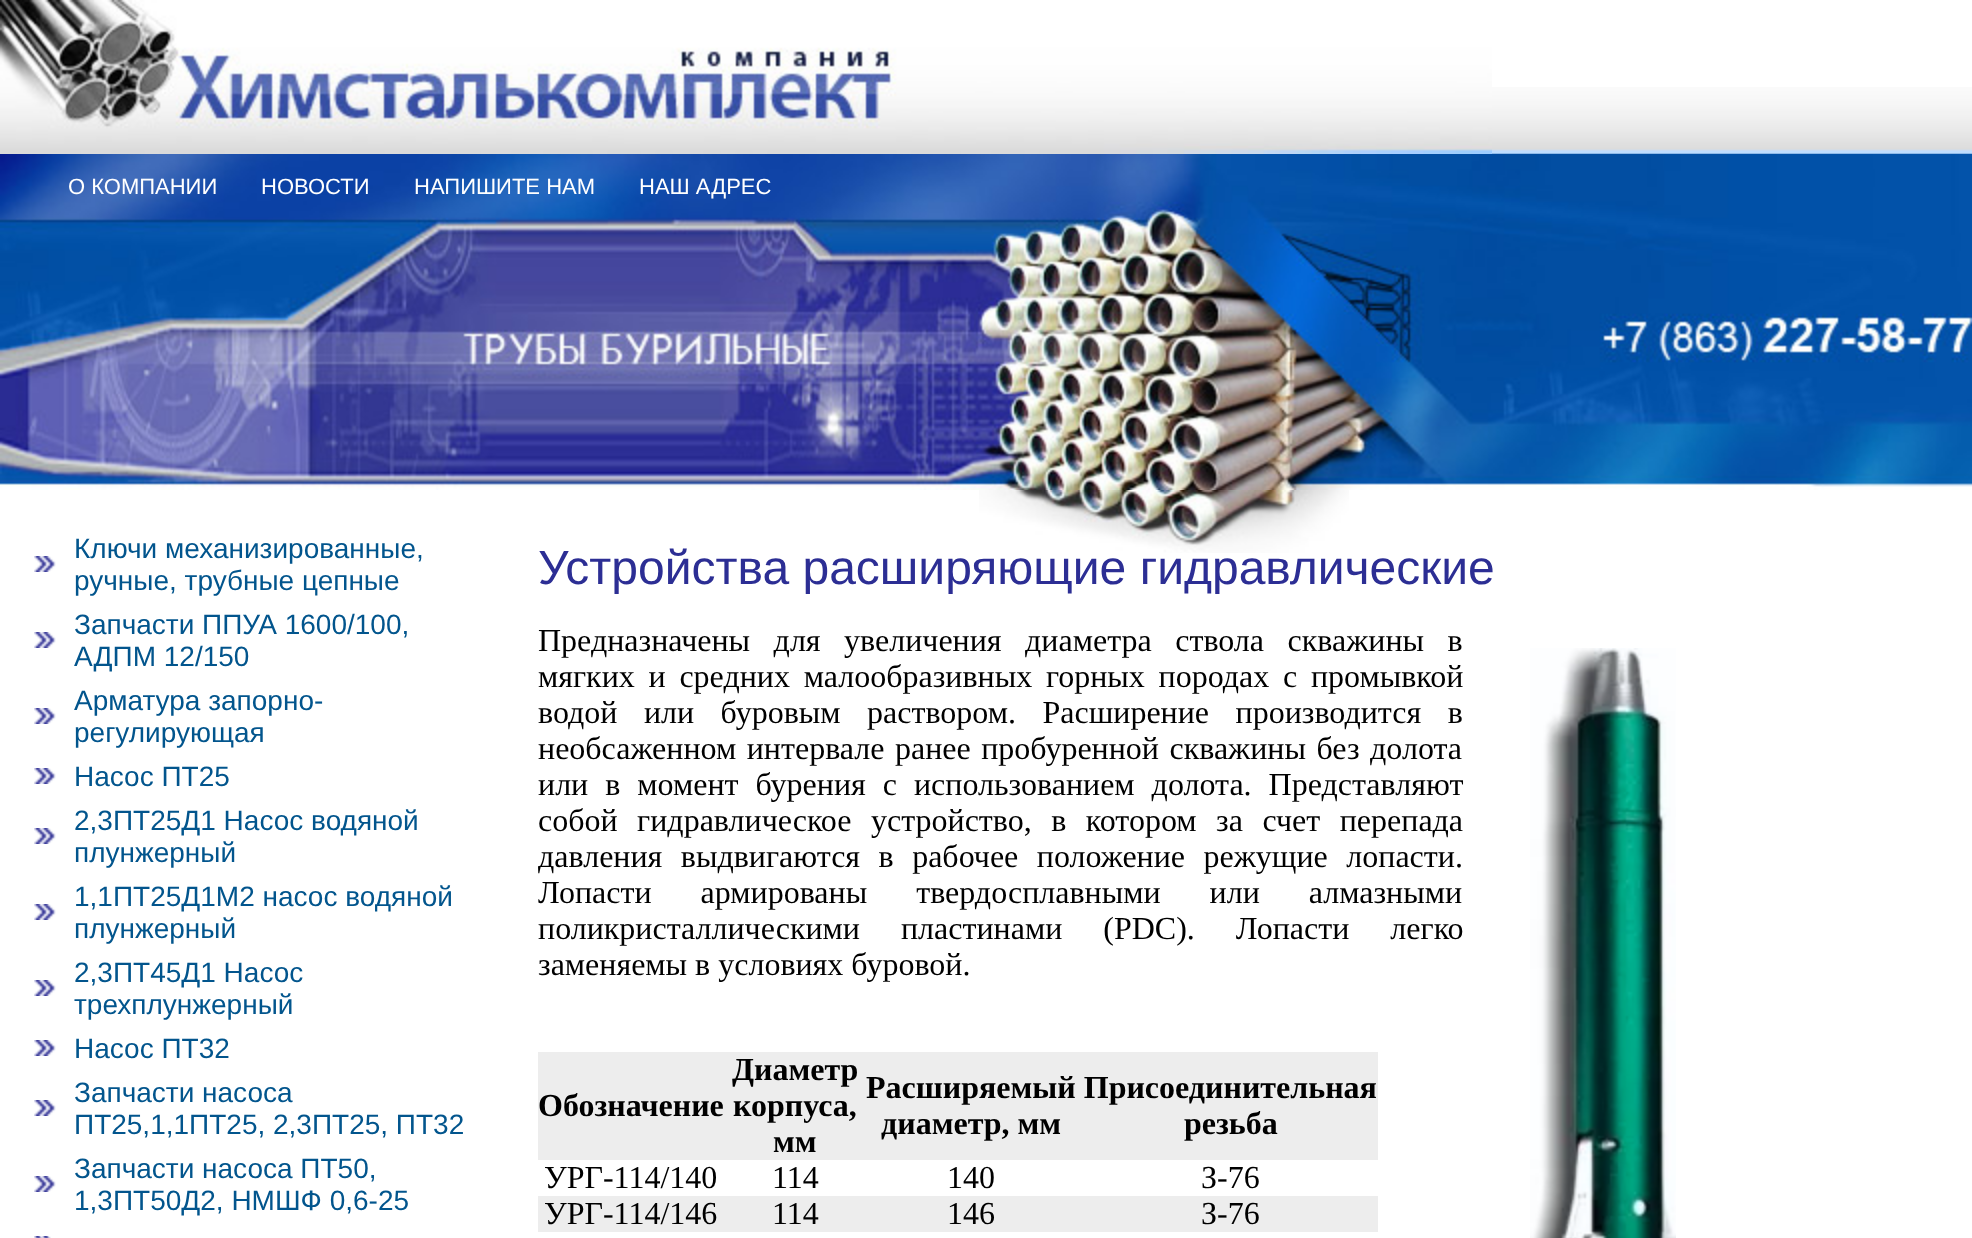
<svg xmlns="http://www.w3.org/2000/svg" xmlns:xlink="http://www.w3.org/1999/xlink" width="1972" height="1238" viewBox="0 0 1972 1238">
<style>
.cls-1{font:22px Liberation Sans;fill:#ffffff}
.cls-2{font:28px Liberation Sans;fill:#02558d}
.cls-3{font:48px Liberation Sans;fill:#2c2e94}
.cls-4{font:32px Liberation Serif;fill:#000000}
.cls-5{font:bold 32px Liberation Serif;fill:#000000}
</style>
<rect width="100%" height="100%" fill="#ffffff"/>
<image xlink:href="image0.png" x="1492" y="87" width="480" height="67"/>
<image xlink:href="image1.png" x="0" y="0" width="1492" height="154"/>
<image xlink:href="image2.png" x="0" y="154" width="1972" height="336"/>
<image xlink:href="image3.png" x="34" y="556" width="22" height="16"/>
<image xlink:href="image3.png" x="34" y="632" width="22" height="16"/>
<image xlink:href="image3.png" x="34" y="708" width="22" height="16"/>
<image xlink:href="image3.png" x="34" y="768" width="22" height="16"/>
<image xlink:href="image3.png" x="34" y="828" width="22" height="16"/>
<image xlink:href="image3.png" x="34" y="904" width="22" height="16"/>
<image xlink:href="image3.png" x="34" y="980" width="22" height="16"/>
<image xlink:href="image3.png" x="34" y="1040" width="22" height="16"/>
<image xlink:href="image3.png" x="34" y="1100" width="22" height="16"/>
<image xlink:href="image3.png" x="34" y="1176" width="22" height="16"/>
<image xlink:href="image4.png" x="34" y="1236" width="17" height="2"/>
<image xlink:href="image5.png" x="979" y="490" width="370" height="63"/>
<image xlink:href="image6.png" x="1530" y="648" width="146" height="590"/>
<rect fill="#ededed" x="538" y="1052" width="840" height="108"/>
<rect fill="#ededed" x="538" y="1196" width="840" height="36"/>
<text class="cls-1" x="68" y="194">О КОМПАНИИ</text>
<text class="cls-1" x="261" y="194">НОВОСТИ</text>
<text class="cls-1" x="414" y="194">НАПИШИТЕ НАМ</text>
<text class="cls-1" x="639" y="194">НАШ АДРЕС</text>
<text class="cls-2"><tspan x="74" y="558">Ключи механизированные,</tspan><tspan x="74" y="590">ручные, трубные цепные</tspan><tspan x="74" y="634">Запчасти ППУА 1600/100,</tspan><tspan x="74" y="666">АДПМ 12/150</tspan><tspan x="74" y="710">Арматура запорно-</tspan><tspan x="74" y="742">регулирующая</tspan><tspan x="74" y="786">Насос ПТ25</tspan><tspan x="74" y="830">2,3ПТ25Д1 Насос водяной</tspan><tspan x="74" y="862">плунжерный</tspan><tspan x="74" y="906">1,1ПТ25Д1М2 насос водяной</tspan><tspan x="74" y="938">плунжерный</tspan><tspan x="74" y="982">2,3ПТ45Д1 Насос</tspan><tspan x="74" y="1014">трехплунжерный</tspan><tspan x="74" y="1058">Насос ПТ32</tspan><tspan x="74" y="1102">Запчасти насоса</tspan><tspan x="74" y="1134">ПТ25,1,1ПТ25, 2,3ПТ25, ПТ32</tspan><tspan x="74" y="1178">Запчасти насоса ПТ50,</tspan><tspan x="74" y="1210">1,3ПТ50Д2, НМШФ 0,6-25</tspan></text>
<text class="cls-3" x="538" y="584">Устройства расширяющие гидравлические</text>
<text class="cls-4"><tspan x="538" y="651" word-spacing="15.5">Предназначены для увеличения диаметра ствола скважины в</tspan><tspan x="538" y="687" word-spacing="5.75">мягких и средних малообразивных горных породах с промывкой</tspan><tspan x="538" y="723" word-spacing="18.5">водой или буровым раствором. Расширение производится в</tspan><tspan x="538" y="759" word-spacing="2.5">необсаженном интервале ранее пробуренной скважины без долота</tspan><tspan x="538" y="795" word-spacing="9">или в момент бурения с использованием долота. Представляют</tspan><tspan x="538" y="831" word-spacing="11.5">собой гидравлическое устройство, в котором за счет перепада</tspan><tspan x="538" y="867" word-spacing="10.5">давления выдвигаются в рабочее положение режущие лопасти.</tspan><tspan x="538" y="903" word-spacing="41">Лопасти армированы твердосплавными или алмазными</tspan><tspan x="538" y="939" word-spacing="33">поликристаллическими пластинами (PDC). Лопасти легко</tspan><tspan x="538" y="975">заменяемы в условиях буровой.</tspan></text>
<text class="cls-5" x="538" y="1116">Обозначение</text>
<text class="cls-5" x="732" y="1080">Диаметр</text>
<text class="cls-5" x="733" y="1116">корпуса,</text>
<text class="cls-5" x="773" y="1152">мм</text>
<text class="cls-5" x="866" y="1098">Расширяемый Присоединительная</text>
<text class="cls-5" x="881" y="1134">диаметр, мм</text>
<text class="cls-5" x="1184" y="1134">резьба</text>
<text class="cls-4" x="544" y="1188">УРГ-114/140</text>
<text class="cls-4" x="772" y="1188">114</text>
<text class="cls-4" x="947" y="1188">140</text>
<text class="cls-4" x="1201" y="1188">З-76</text>
<text class="cls-4" x="544" y="1224">УРГ-114/146</text>
<text class="cls-4" x="772" y="1224">114</text>
<text class="cls-4" x="947" y="1224">146</text>
<text class="cls-4" x="1201" y="1224">З-76</text>
</svg>
